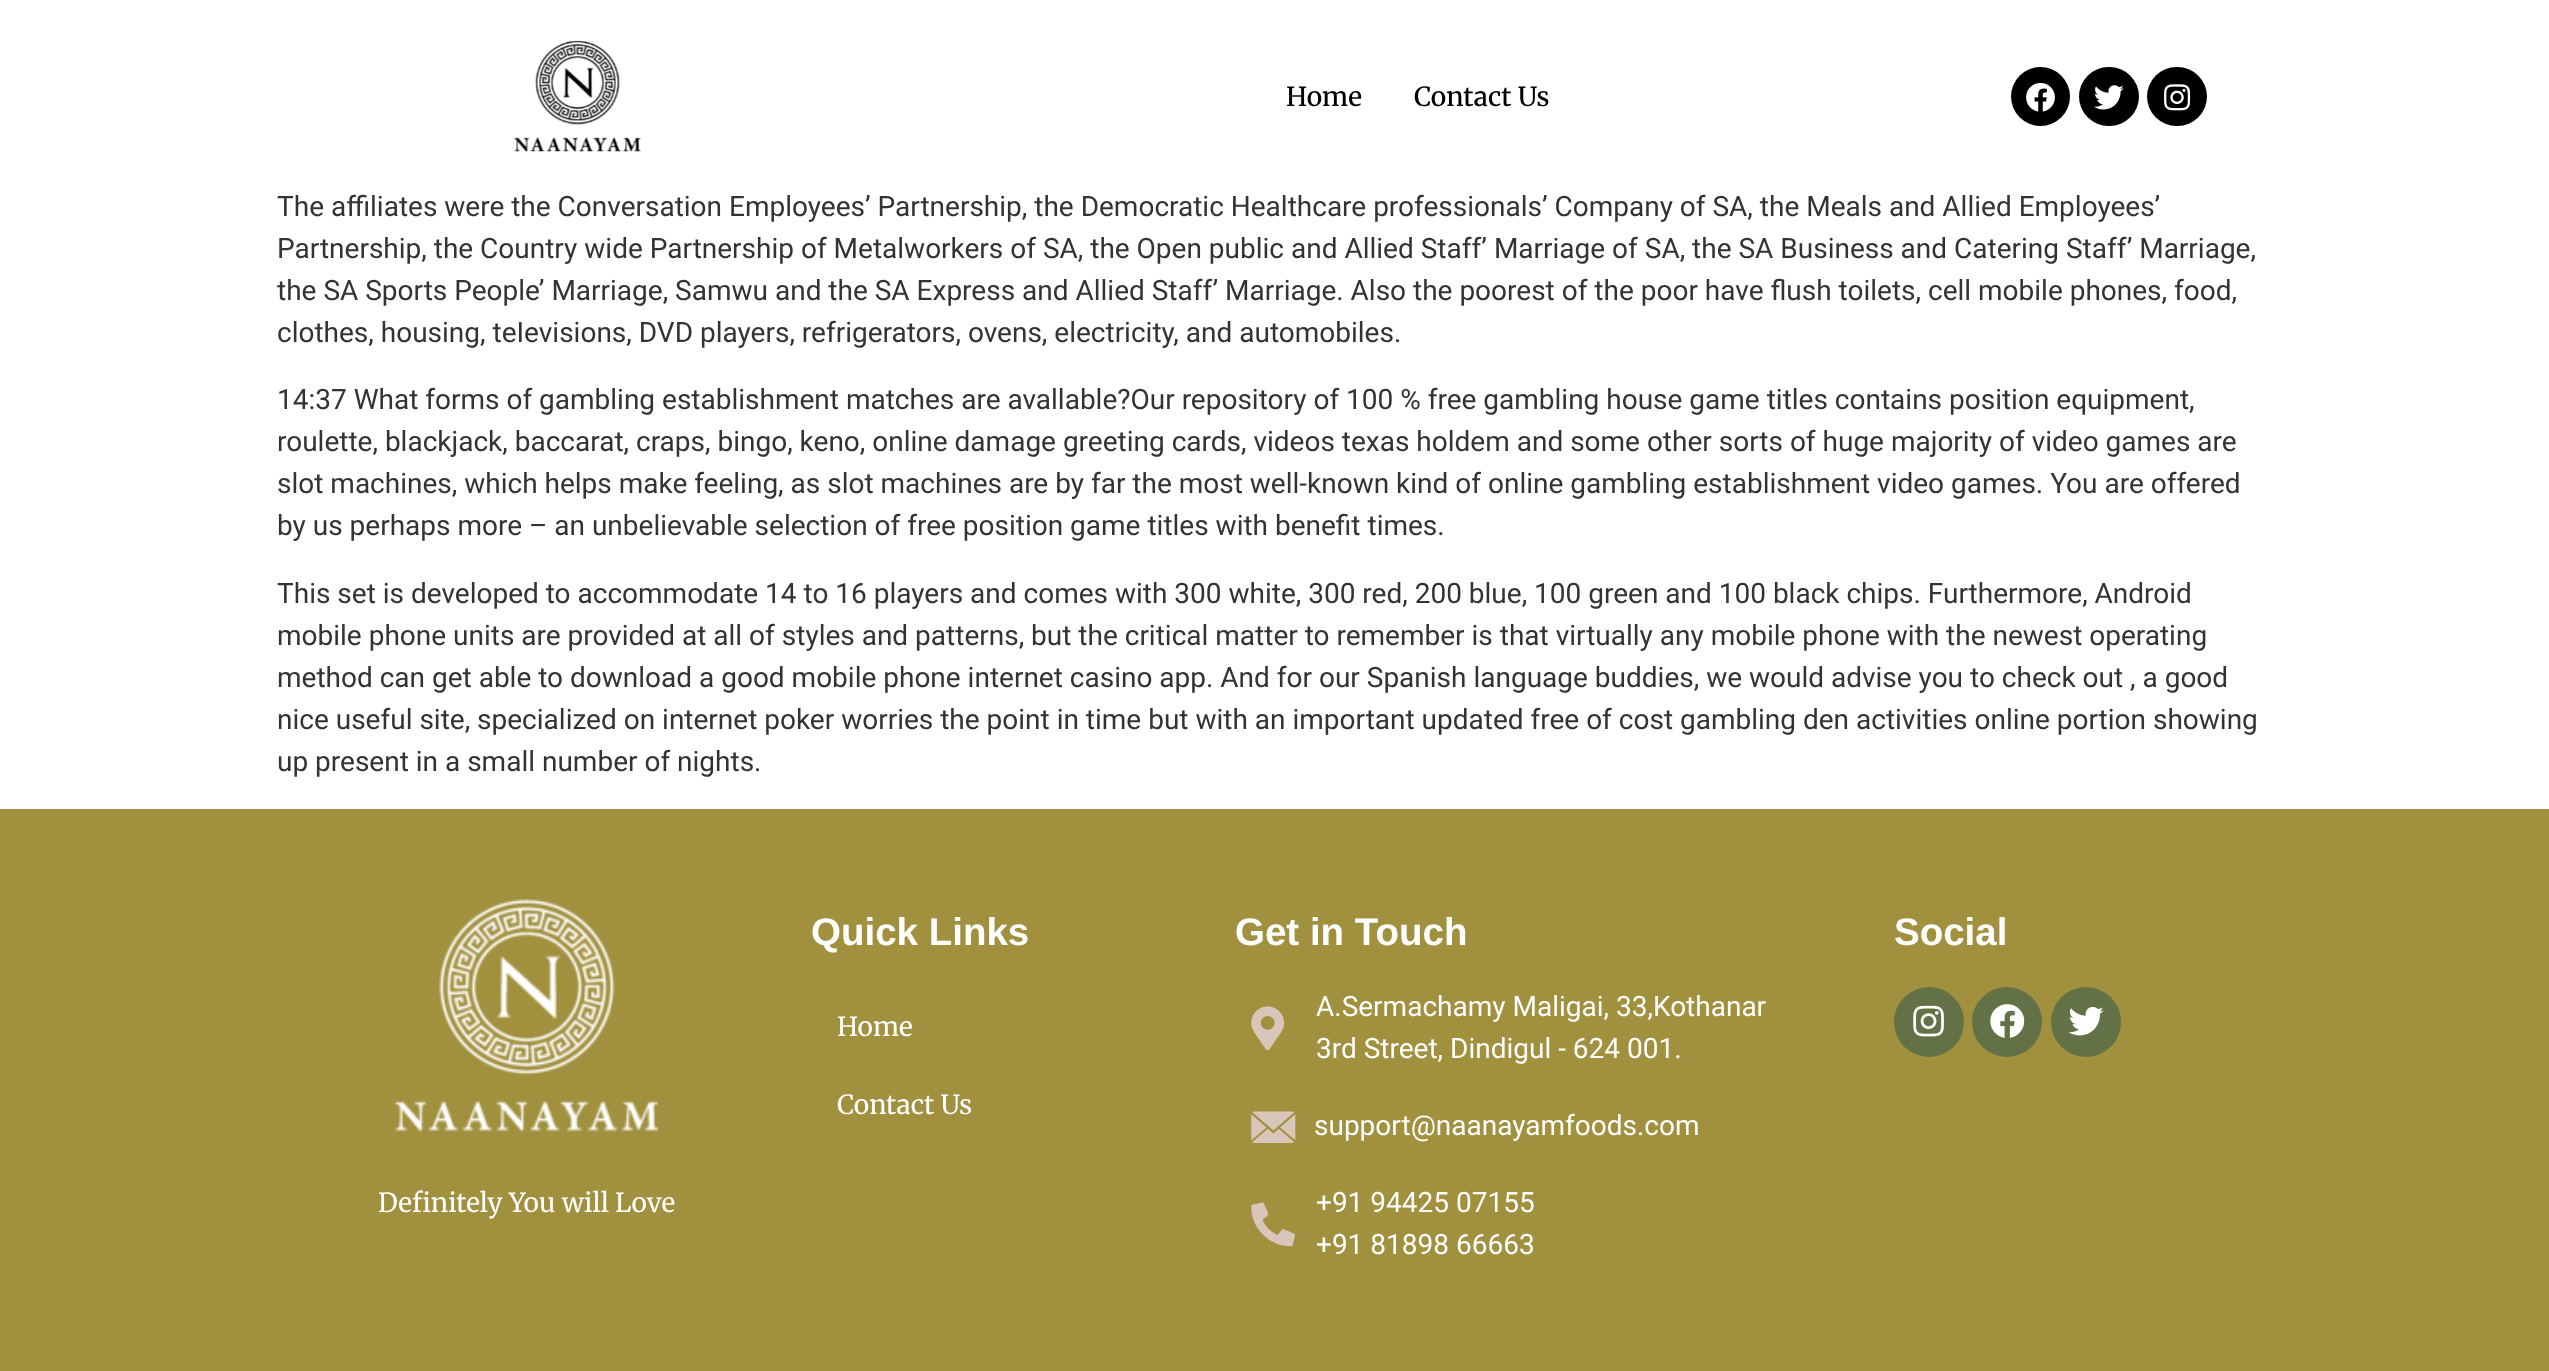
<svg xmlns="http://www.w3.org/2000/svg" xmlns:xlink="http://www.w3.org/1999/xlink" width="2549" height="1371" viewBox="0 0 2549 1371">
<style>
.cls-1{font:500 26.25px Merriweather;fill:#000000}
.cls-2{font:28px Roboto;fill:#333333}
.cls-3{font:bold 38.5px Liberation Sans;fill:#ffffff}
.cls-4{font:26.25px Merriweather;fill:#ffffff}
.cls-5{font:28px Roboto;fill:#ffffff}
</style>
<rect width="100%" height="100%" fill="#ffffff"/>
<image xlink:href="image0.png" x="514" y="40" width="127" height="112"/>
<circle fill="#000000" cx="2040.5" cy="96.5" r="29.5"/>
<image xlink:href="image1.png" x="2026" y="82" width="29" height="30"/>
<rect fill="#000000" x="2079" y="67" width="60" height="59" rx="29.5"/>
<image xlink:href="image2.png" x="2094" y="85" width="30" height="25"/>
<rect fill="#000000" x="2147" y="67" width="60" height="59" rx="29.5"/>
<image xlink:href="image3.png" x="2164" y="84" width="27" height="27"/>
<rect fill="#a1903e" x="0" y="809" width="2549" height="562"/>
<image xlink:href="image4.png" x="1251" y="1006" width="34" height="45"/>
<image xlink:href="image5.png" x="1251" y="1111" width="45" height="32"/>
<image xlink:href="image6.png" x="1251" y="1202" width="44" height="45"/>
<circle fill="#627246" cx="1929" cy="1022" r="35"/>
<image xlink:href="image7.png" x="1913" y="1005" width="31" height="32"/>
<circle fill="#627246" cx="2007" cy="1022" r="35"/>
<image xlink:href="image8.png" x="1990" y="1004" width="35" height="34"/>
<circle fill="#627246" cx="2086" cy="1022" r="35"/>
<image xlink:href="image9.png" x="2068" y="1006" width="36" height="30"/>
<image xlink:href="image10.png" x="395" y="899" width="263" height="233"/>
<text class="cls-1" x="1286" y="106">Home</text>
<text class="cls-1" x="1414" y="106">Contact Us</text>
<text class="cls-2"><tspan x="277" y="216">The affiliates were the Conversation Employees’ Partnership, the Democratic Healthcare professionals’ Company of SA, the Meals and Allied Employees’</tspan><tspan x="277" y="258">Partnership, the Country wide Partnership of Metalworkers of SA, the Open public and Allied Staff’ Marriage of SA, the SA Business and Catering Staff’ Marriage,</tspan><tspan x="277" y="300">the SA Sports People’ Marriage, Samwu and the SA Express and Allied Staff’ Marriage. Also the poorest of the poor have flush toilets, cell mobile phones, food,</tspan><tspan x="277" y="342">clothes, housing, teIevisions, DVD players, refrigerators, ovens, electricity, and automobiles.</tspan></text>
<text class="cls-2"><tspan x="277" y="409">14:37 What forms of gambling establishment matches are avallable?Our repository of 100 % free gambling house game titles contains position equipment,</tspan><tspan x="277" y="451">roulette, blackjack, baccarat, craps, bingo, keno, online damage greeting cards, videos texas holdem and some other sorts of huge majority of video games are</tspan><tspan x="277" y="493">slot machines, which helps make feeling, as slot machines are by far the most well-known kind of online gambling establishment video games. You are offered</tspan><tspan x="277" y="535">by us perhaps more – an unbelievable selection of free position game titles with benefit times.</tspan></text>
<text class="cls-2"><tspan x="277" y="603">This set is developed to accommodate 14 to 16 players and comes with 300 white, 300 red, 200 blue, 100 green and 100 black chips. Furthermore, Android</tspan><tspan x="277" y="645">mobile phone units are provided at all of styles and patterns, but the critical matter to remember is that virtually any mobile phone with the newest operating</tspan><tspan x="277" y="687">method can get able to download a good mobile phone internet casino app. And for our Spanish language buddies, we would advise you to check out , a good</tspan><tspan x="277" y="729">nice useful site, specialized on internet poker worries the point in time but with an important updated free of cost gambling den activities online portion showing</tspan><tspan x="277" y="771">up present in a small number of nights.</tspan></text>
<text class="cls-3" x="811" y="945">Quick Links</text>
<text class="cls-4" x="837" y="1036">Home</text>
<text class="cls-4" x="837" y="1114">Contact Us</text>
<text class="cls-3" x="1235" y="945">Get in Touch</text>
<text class="cls-5"><tspan x="1316" y="1016">A.Sermachamy Maligai, 33,Kothanar</tspan><tspan x="1316" y="1058">3rd Street, Dindigul - 624 001.</tspan></text>
<text class="cls-5" x="1314" y="1135">support@naanayamfoods.com</text>
<text class="cls-5"><tspan x="1316" y="1212">+91 94425 07155</tspan><tspan x="1316" y="1254">+91 81898 66663</tspan></text>
<text class="cls-3" x="1894" y="945">Social</text>
<text class="cls-4" x="378" y="1212">Definitely You will Love</text>
</svg>
